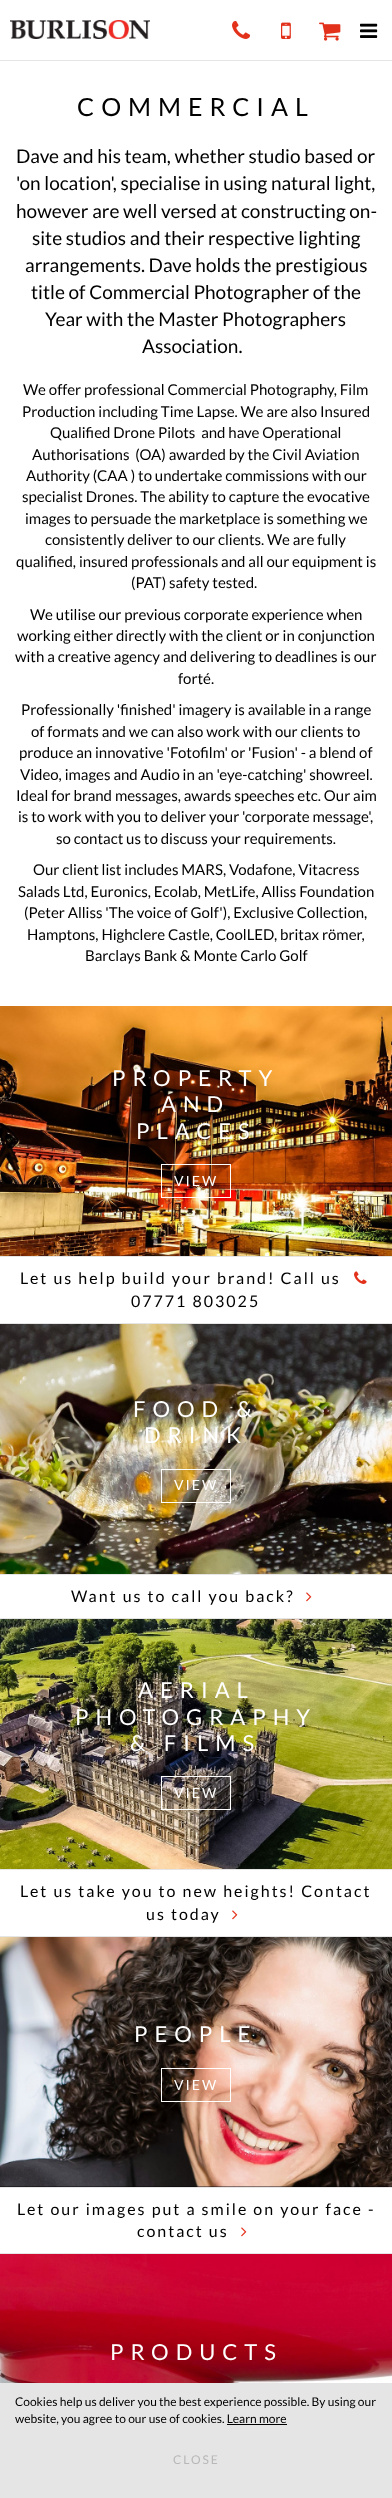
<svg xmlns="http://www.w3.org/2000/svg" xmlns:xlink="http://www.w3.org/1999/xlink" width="392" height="2498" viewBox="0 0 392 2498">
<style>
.cls-1{font:25px Lato;letter-spacing:7px;fill:#000000}
.cls-2{font:19px Lato;fill:#000000}
.cls-3{font:15px Lato;fill:#000000}
.cls-4{font:22px Lato;letter-spacing:7px;fill:#ffffff}
.cls-5{font:14px Lato;letter-spacing:2px;fill:#ffffff}
.cls-6{font:16px Lato;letter-spacing:2px;fill:#000000}
.cls-7{font:12px Lato;fill:#000000}
.cls-8{font:12px Lato;letter-spacing:2px;fill:#b7b7b7}
</style>
<rect width="100%" height="100%" fill="#ffffff"/>
<rect fill="#e5e5e5" x="0" y="60" width="392" height="1"/>
<image xlink:href="image0.png" x="10" y="20" width="140" height="19"/>
<image xlink:href="image1.png" x="232" y="20" width="19" height="19"/>
<image xlink:href="image2.png" x="281" y="22" width="10" height="17"/>
<image xlink:href="image3.png" x="319" y="22" width="22" height="19"/>
<image xlink:href="image4.png" x="360" y="23" width="18" height="15"/>
<image xlink:href="image5.png" x="0" y="1006" width="392" height="250"/>
<rect fill="none" stroke="#ffffff" x="161.5" y="1164.5" width="69" height="33"/>
<rect fill="#e5e5e5" x="0" y="1256" width="392" height="1"/>
<rect fill="#e5e5e5" x="0" y="1323" width="392" height="1"/>
<image xlink:href="image6.png" x="354" y="1271" width="13" height="13"/>
<image xlink:href="image7.png" x="0" y="1324" width="392" height="250"/>
<rect fill="none" stroke="#ffffff" x="161.5" y="1469.5" width="69" height="33"/>
<rect fill="#e5e5e5" x="0" y="1574" width="392" height="1"/>
<rect fill="#e5e5e5" x="0" y="1618" width="392" height="1"/>
<image xlink:href="image8.png" x="306" y="1592" width="6" height="10"/>
<image xlink:href="image9.png" x="0" y="1619" width="392" height="250"/>
<rect fill="none" stroke="#ffffff" x="161.5" y="1776.5" width="69" height="33"/>
<rect fill="#e5e5e5" x="0" y="1869" width="392" height="1"/>
<rect fill="#e5e5e5" x="0" y="1936" width="392" height="1"/>
<image xlink:href="image8.png" x="232" y="1910" width="6" height="10"/>
<image xlink:href="image10.png" x="0" y="1937" width="392" height="250"/>
<rect fill="none" stroke="#ffffff" x="161.5" y="2068.5" width="69" height="33"/>
<rect fill="#e5e5e5" x="0" y="2187" width="392" height="1"/>
<rect fill="#e5e5e5" x="0" y="2253" width="392" height="1"/>
<image xlink:href="image8.png" x="241" y="2227" width="6" height="10"/>
<image xlink:href="image11.png" x="0" y="2254" width="392" height="129"/>
<rect fill="#e5e5e5" x="0" y="2383" width="392" height="115"/>
<rect fill="#000000" x="227" y="2424" width="60" height="1"/>
<text class="cls-1" x="77" y="116">COMMERCIAL</text>
<text class="cls-2"><tspan x="16" y="163">Dave and his team, whether studio based or</tspan><tspan x="16" y="190">'on location', specialise in using natural light,</tspan><tspan x="16" y="218">however are well versed at constructing on-</tspan></text>
<text class="cls-2" x="32" y="245">site studios and their respective lighting</text>
<text class="cls-2" x="25" y="272">arrangements. Dave holds the prestigious</text>
<text class="cls-2" x="31" y="299">title of Commercial Photographer of the</text>
<text class="cls-2" x="45" y="326">Year with the Master Photographers</text>
<text class="cls-2" x="142" y="353">Association.</text>
<text class="cls-3" x="23" y="395">We offer professional Commercial Photography, Film</text>
<text class="cls-3" x="22" y="417">Production including Time Lapse. We are also Insured</text>
<text class="cls-3" xml:space="preserve" x="50" y="438">Qualified Drone Pilots  and have Operational</text>
<text class="cls-3" xml:space="preserve" x="32" y="460">Authorisations  (OA) awarded by the Civil Aviation</text>
<text class="cls-3" x="26" y="481">Authority (CAA ) to undertake commissions with our</text>
<text class="cls-3" x="22" y="502">specialist Drones. The ability to capture the evocative</text>
<text class="cls-3" x="25" y="524">images to persuade the marketplace is something we</text>
<text class="cls-3" x="45" y="545">consistently deliver to our clients. We are fully</text>
<text class="cls-3" x="16" y="567">qualified, insured professionals and all our equipment is</text>
<text class="cls-3" x="131" y="588">(PAT) safety tested.</text>
<text class="cls-3" x="30" y="620">We utilise our previous corporate experience when</text>
<text class="cls-3" x="17" y="641">working either directly with the client or in conjunction</text>
<text class="cls-3" x="15" y="662">with a creative agency and delivering to deadlines is our</text>
<text class="cls-3" x="178" y="684">forté.</text>
<text class="cls-3" x="21" y="715">Professionally 'finished' imagery is available in a range</text>
<text class="cls-3" x="31" y="737">of formats and we can also work with our clients to</text>
<text class="cls-3" x="19" y="758">produce an innovative 'Fotofilm' or 'Fusion' - a blend of</text>
<text class="cls-3" x="20" y="780">Video, images and Audio in an 'eye-catching' showreel.</text>
<text class="cls-3" x="16" y="801">Ideal for brand messages, awards speeches etc. Our aim</text>
<text class="cls-3" x="18" y="822">is to work with you to deliver your 'corporate message',</text>
<text class="cls-3" x="56" y="844">so contact us to discuss your requirements.</text>
<text class="cls-3" x="33" y="875">Our client list includes MARS, Vodafone, Vitacress</text>
<text class="cls-3" x="18" y="897">Salads Ltd, Euronics, Ecolab, MetLife, Alliss Foundation</text>
<text class="cls-3" x="24" y="918">(Peter Alliss 'The voice of Golf'), Exclusive Collection,</text>
<text class="cls-3" x="27" y="940">Hamptons, Highclere Castle, CoolLED, britax römer,</text>
<text class="cls-3" x="85" y="961">Barclays Bank &amp; Monte Carlo Golf</text>
<text class="cls-4" x="112" y="1086">PROPERTY</text>
<text class="cls-4" x="161" y="1112">AND</text>
<text class="cls-4" x="136" y="1139">PLACES</text>
<text class="cls-5" x="174" y="1186">VIEW</text>
<text class="cls-6" x="20" y="1284">Let us help build your brand! Call us</text>
<text class="cls-6" x="131" y="1307">07771 803025</text>
<text class="cls-4" x="133" y="1417">FOOD &amp;</text>
<text class="cls-4" x="144" y="1443">DRINK</text>
<text class="cls-5" x="174" y="1490">VIEW</text>
<text class="cls-6" x="71" y="1602">Want us to call you back?</text>
<text class="cls-4" x="138" y="1698">AERIAL</text>
<text class="cls-4" x="75" y="1725">PHOTOGRAPHY</text>
<text class="cls-4" x="130" y="1751">&amp; FILMS</text>
<text class="cls-5" x="174" y="1798">VIEW</text>
<text class="cls-6" x="20" y="1897">Let us take you to new heights! Contact</text>
<text class="cls-6" x="146" y="1920">us today</text>
<text class="cls-4" x="134" y="2042">PEOPLE</text>
<text class="cls-5" x="174" y="2090">VIEW</text>
<text class="cls-6" x="17" y="2215">Let our images put a smile on your face -</text>
<text class="cls-6" x="137" y="2237">contact us</text>
<text class="cls-4" x="110" y="2360">PRODUCTS</text>
<text class="cls-7"><tspan x="15" y="2406">Cookies help us deliver you the best experience possible. By using our</tspan><tspan x="15" y="2423">website, you agree to our use of cookies. Learn more</tspan></text>
<text class="cls-8" x="173" y="2464">CLOSE</text>
</svg>
